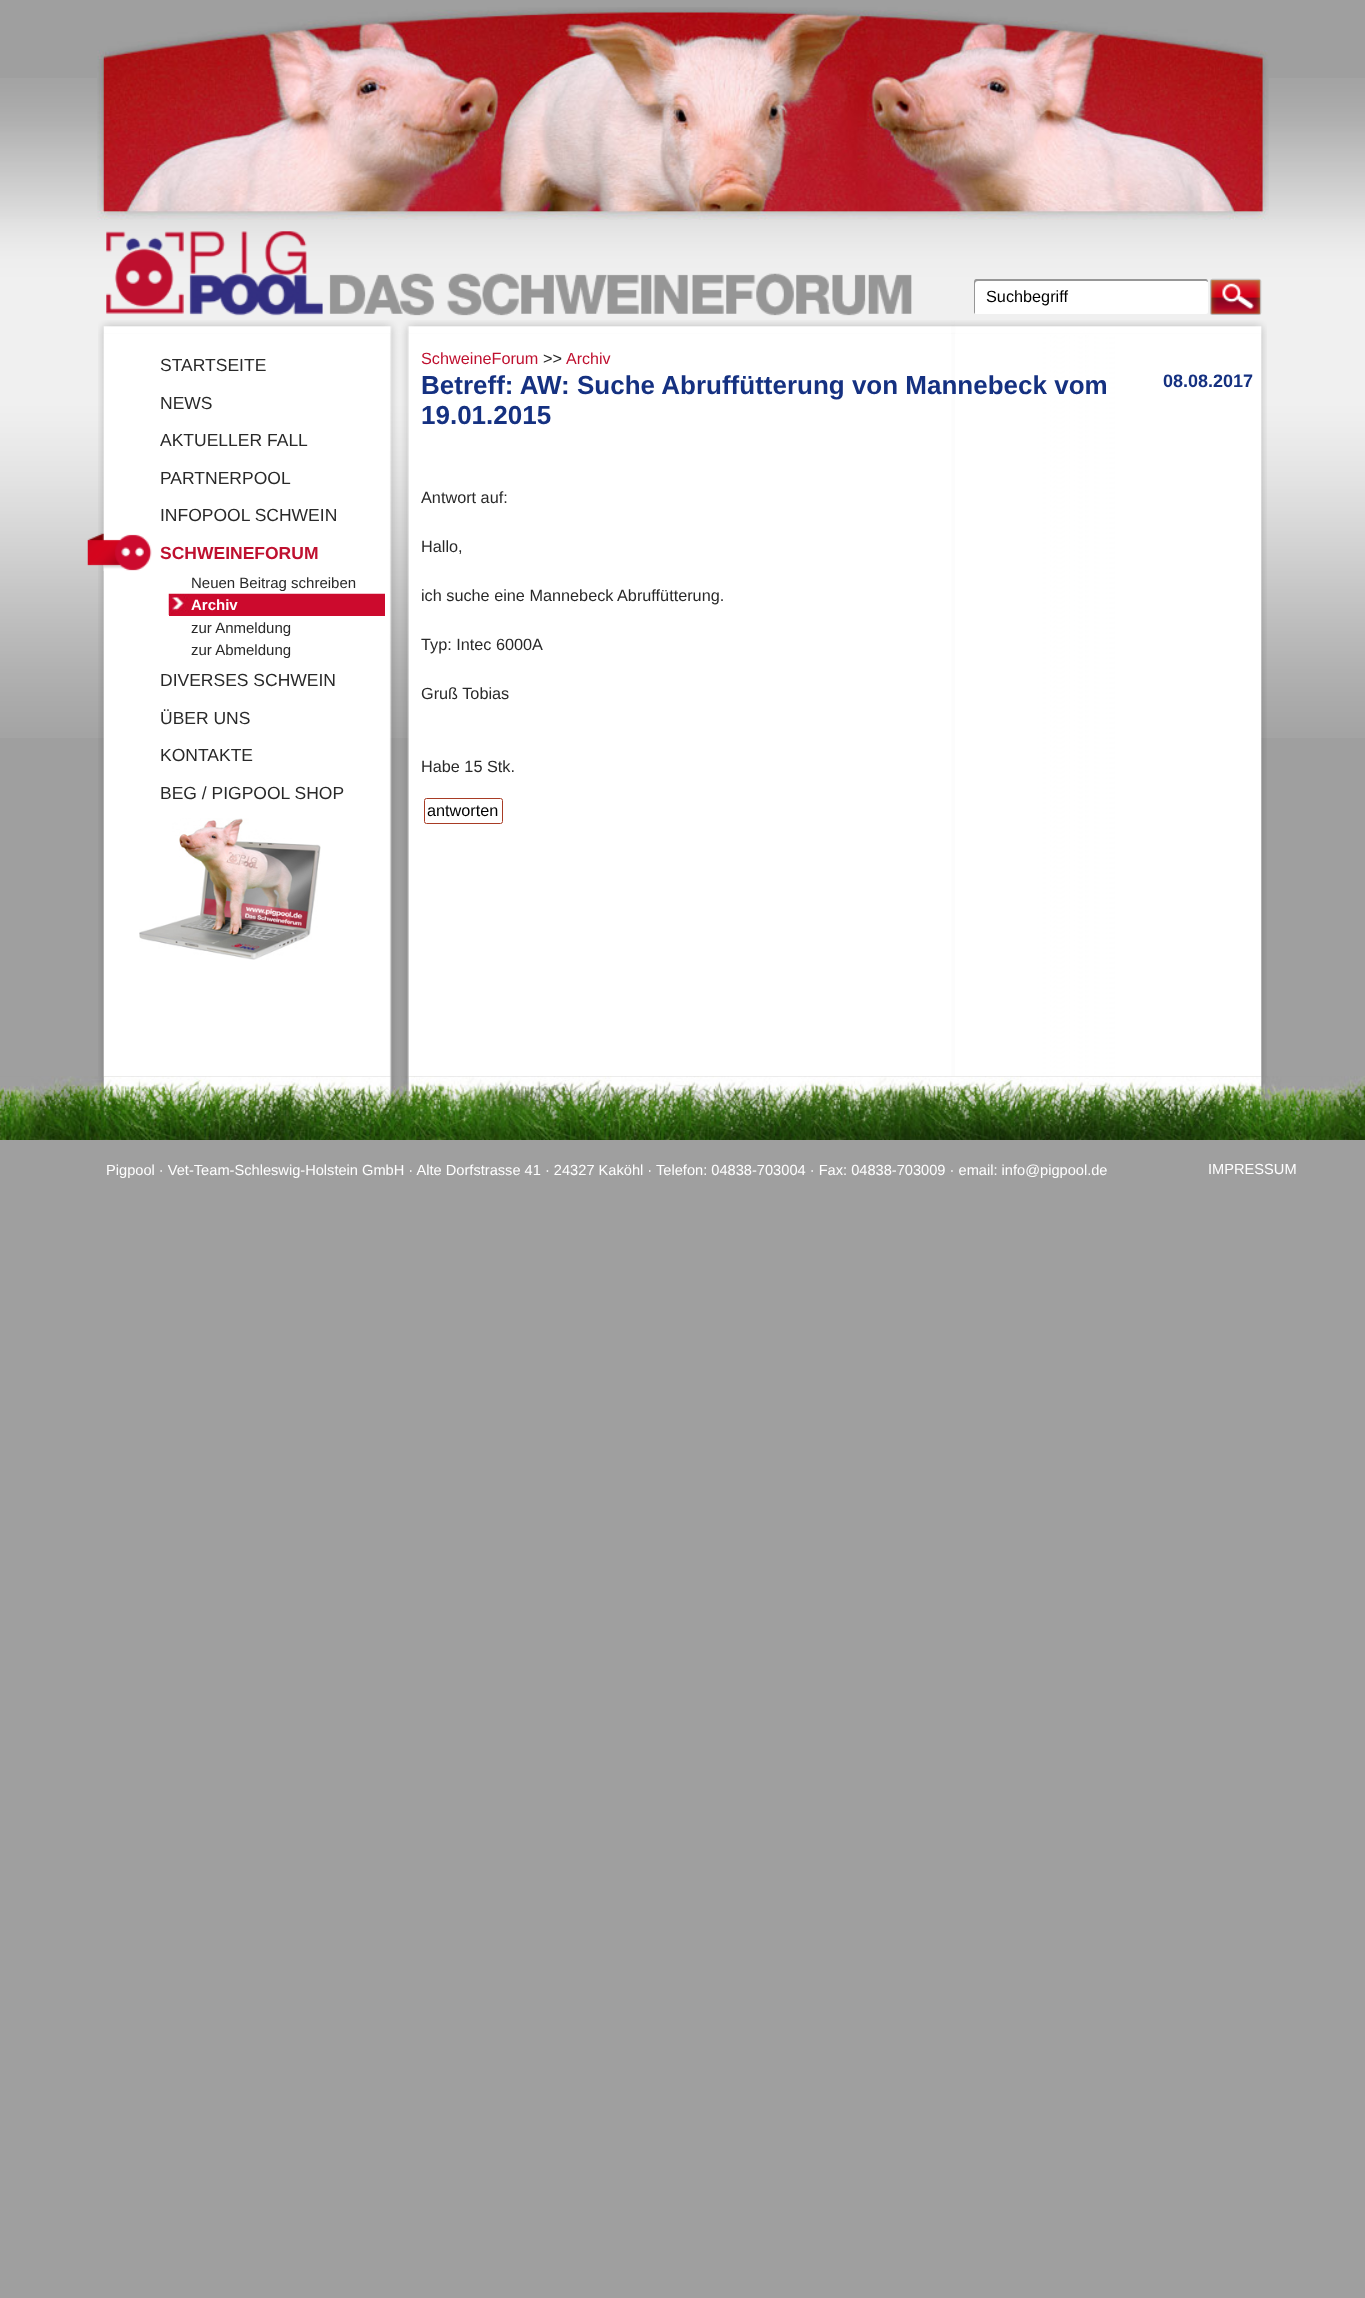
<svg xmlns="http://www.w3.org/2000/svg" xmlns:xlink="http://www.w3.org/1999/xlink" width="1365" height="2298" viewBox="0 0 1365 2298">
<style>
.cls-1{font:16.25px Liberation Sans;fill:#000000}
.cls-2{font:17.5px Liberation Sans;fill:#292929}
.cls-3{font:bold 17.5px Liberation Sans;fill:#bf102f}
.cls-4{font:15px Liberation Sans;fill:#292929}
.cls-5{font:bold 15px Liberation Sans;fill:#ffffff}
.cls-6{font:16.25px Liberation Sans;fill:#bf102f}
.cls-7{font:16.25px Liberation Sans;fill:#292929}
.cls-8{font:16px Liberation Sans;fill:#bf102f}
.cls-9{font:bold 26px Liberation Sans;fill:#153181}
.cls-10{font:bold 18px Liberation Sans;fill:#153181}
.cls-11{font:14.63px Liberation Sans;fill:#ffffff}
</style>
<rect width="100%" height="100%" fill="#9f9f9f"/>
<image xlink:href="image0.png" x="0" y="78" width="1365" height="660"/>
<image xlink:href="image1.png" x="97" y="7" width="1172" height="213"/>
<image xlink:href="image2.png" x="106" y="231" width="806" height="85"/>
<rect fill="#ffffff" x="974" y="279" width="234" height="35" rx="2.5"/>
<path fill="#969696" d="M978 281H1206L1208 282C1208 280 1207 279 1206 279H976C975 279 974 280 974 282V312C974 312 974 313 975 314V284C975 282 976 281 978 281Z"/>
<image xlink:href="image3.png" x="1210" y="278" width="52" height="37"/>
<image xlink:href="image4.png" x="98" y="320" width="1169" height="14"/>
<image xlink:href="image9.png" x="0" y="1076" width="1365" height="64"/>
<image xlink:href="image5.png" x="98" y="333" width="1169" height="744"/>
<image xlink:href="image6.png" x="87" y="533" width="65" height="38"/>
<rect fill="#cc0a2d" x="169" y="615" width="216" height="1"/>
<image xlink:href="image7.png" x="168" y="593" width="217" height="22"/>
<image xlink:href="image8.png" x="139" y="818" width="182" height="142"/>
<rect fill="none" stroke="#a83b24" x="424.5" y="798.5" width="78" height="25" rx="2"/>
<text class="cls-1" x="986" y="302">Suchbegriff</text>
<text class="cls-2" x="160" y="371">STARTSEITE</text>
<text class="cls-2" x="160" y="409">NEWS</text>
<text class="cls-2" x="160" y="446">AKTUELLER FALL</text>
<text class="cls-2" x="160" y="484">PARTNERPOOL</text>
<text class="cls-2" x="160" y="521">INFOPOOL SCHWEIN</text>
<text class="cls-3" x="160" y="559">SCHWEINEFORUM</text>
<text class="cls-4" x="191" y="588">Neuen Beitrag schreiben</text>
<text class="cls-5" x="191" y="610">Archiv</text>
<text class="cls-4"><tspan x="191" y="633">zur Anmeldung</tspan><tspan x="191" y="655">zur Abmeldung</tspan></text>
<text class="cls-2" x="160" y="686">DIVERSES SCHWEIN</text>
<text class="cls-2" x="160" y="724">ÜBER UNS</text>
<text class="cls-2" x="160" y="761">KONTAKTE</text>
<text class="cls-2" x="160" y="799">BEG / PIGPOOL SHOP</text>
<text class="cls-6" x="421" y="364">SchweineForum</text>
<text class="cls-7" x="543" y="364">&gt;&gt;</text>
<text class="cls-8" x="566" y="364">Archiv</text>
<text class="cls-9"><tspan x="421" y="394">Betreff: AW: Suche Abruffütterung von Mannebeck vom</tspan><tspan x="421" y="424">19.01.2015</tspan></text>
<text class="cls-10" x="1163" y="387">08.08.2017</text>
<text class="cls-7" x="421" y="503">Antwort auf:</text>
<text class="cls-7" x="421" y="552">Hallo,</text>
<text class="cls-7" x="421" y="601">ich suche eine Mannebeck Abruffütterung.</text>
<text class="cls-7" x="421" y="650">Typ: Intec 6000A</text>
<text class="cls-7" x="421" y="699">Gruß Tobias</text>
<text class="cls-7" x="421" y="772">Habe 15 Stk.</text>
<text class="cls-1" x="427" y="816">antworten</text>
<text class="cls-11" x="106" y="1175">Pigpool · Vet-Team-Schleswig-Holstein GmbH · Alte Dorfstrasse 41 · 24327 Kaköhl · Telefon: 04838-703004 · Fax: 04838-703009 · email: info@pigpool.de</text>
<text class="cls-11" x="1208" y="1174">IMPRESSUM</text>
</svg>
